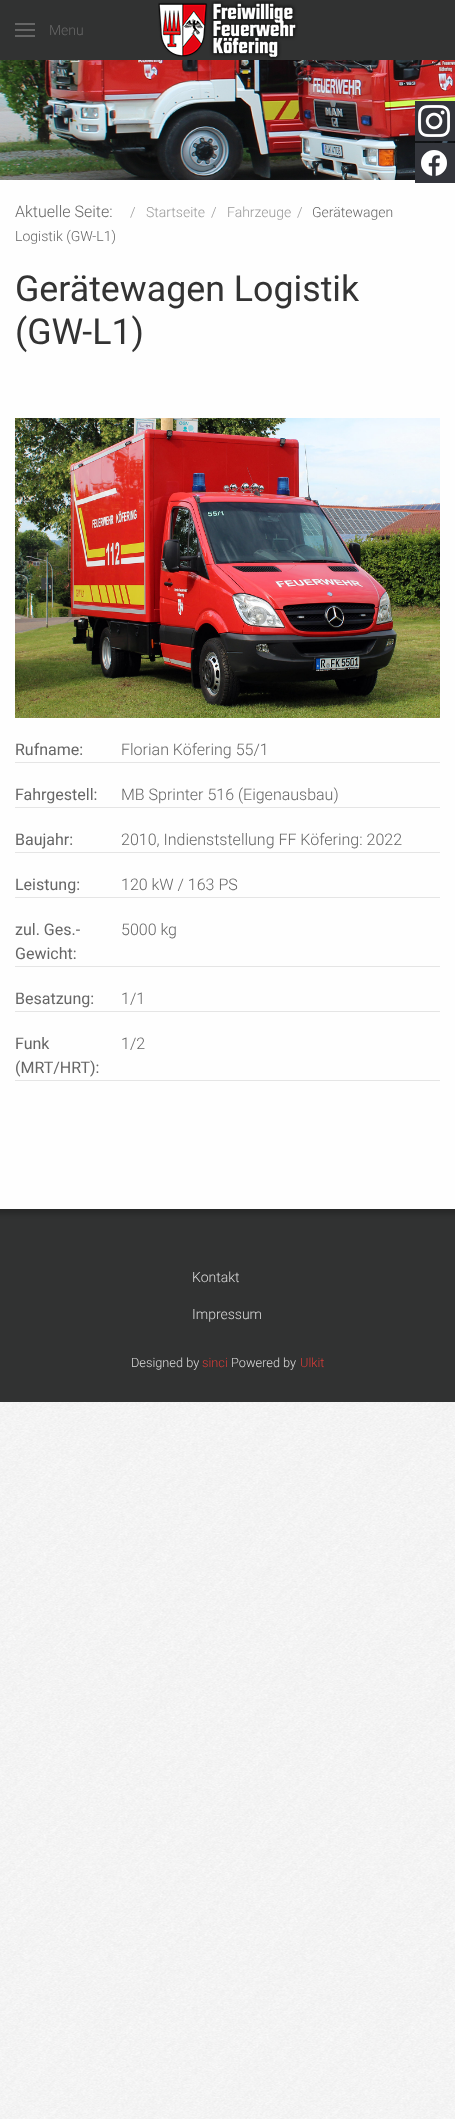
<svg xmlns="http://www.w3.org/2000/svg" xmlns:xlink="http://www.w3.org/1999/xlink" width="455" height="2119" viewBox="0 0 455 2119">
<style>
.cls-1{font:300 14px Roboto;fill:#666666}
.cls-2{font:300 16px Roboto;fill:#666666}
.cls-3{font:300 14px Roboto;fill:#999999}
.cls-4{font:35.75px Roboto;fill:#333333}
.cls-5{font:16px Roboto;fill:#666666}
.cls-6{font:300 14px Roboto;fill:#dbdbdb}
.cls-7{font:300 12.75px Roboto;fill:#dbdbdb}
.cls-8{font:300 12.75px Roboto;fill:#d63b37}
</style>
<rect width="100%" height="100%" fill="#ffffff"/>
<image xlink:href="image0.png" x="0" y="1402" width="455" height="717"/>
<rect fill="#313232" x="0" y="1209" width="455" height="193"/>
<rect fill="#000000" fill-opacity="0.2" filter="blur(2.5px)" x="-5" y="55" width="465" height="1159"/>
<rect fill="#313232" x="0" y="0" width="455" height="60"/>
<rect fill="#666666" x="15" y="23" width="20" height="2"/>
<rect fill="#666666" x="15" y="29" width="20" height="2"/>
<rect fill="#666666" x="15" y="35" width="20" height="2"/>
<image xlink:href="image1.png" x="158" y="1" width="140" height="59"/>
<rect fill="#fefefe" x="0" y="180" width="455" height="1029"/>
<image xlink:href="image2.png" x="0" y="60" width="455" height="120"/>
<rect fill="#33353b" x="415" y="101" width="40" height="40"/>
<image xlink:href="image3.png" x="418" y="105" width="32" height="32"/>
<rect fill="#33353b" x="415" y="143" width="40" height="40"/>
<image xlink:href="image4.png" x="421" y="150" width="26" height="26"/>
<image xlink:href="image5.png" x="15" y="418" width="425" height="300"/>
<rect fill="#e5e5e5" x="15" y="762" width="425" height="1"/>
<rect fill="#e5e5e5" x="15" y="807" width="425" height="1"/>
<rect fill="#e5e5e5" x="15" y="852" width="425" height="1"/>
<rect fill="#e5e5e5" x="15" y="897" width="425" height="1"/>
<rect fill="#e5e5e5" x="15" y="966" width="425" height="1"/>
<rect fill="#e5e5e5" x="15" y="1011" width="425" height="1"/>
<rect fill="#e5e5e5" x="15" y="1080" width="425" height="1"/>
<text class="cls-1" x="49" y="35">Menu</text>
<text class="cls-2" x="15" y="217">Aktuelle Seite:</text>
<text class="cls-3" x="297" y="217">/</text>
<text class="cls-1" x="312" y="217">Gerätewagen</text>
<text class="cls-1" x="15" y="241">Logistik (GW-L1)</text>
<text class="cls-3" x="130" y="217">/</text>
<text class="cls-3" x="146" y="217">Startseite</text>
<text class="cls-3" x="211" y="217">/</text>
<text class="cls-3" x="227" y="217">Fahrzeuge</text>
<text class="cls-4"><tspan x="15" y="301">Gerätewagen Logistik</tspan><tspan x="15" y="344">(GW-L1)</tspan></text>
<text class="cls-5" x="15" y="755">Rufname:</text>
<text class="cls-2" x="121" y="755">Florian Köfering 55/1</text>
<text class="cls-5" x="15" y="800">Fahrgestell:</text>
<text class="cls-2" x="121" y="800">MB Sprinter 516 (Eigenausbau)</text>
<text class="cls-5" x="15" y="845">Baujahr:</text>
<text class="cls-2" x="121" y="845">2010, Indienststellung FF Köfering: 2022</text>
<text class="cls-5" x="15" y="890">Leistung:</text>
<text class="cls-2" x="121" y="890">120 kW / 163 PS</text>
<text class="cls-5"><tspan x="15" y="935">zul. Ges.-</tspan><tspan x="15" y="959">Gewicht:</tspan></text>
<text class="cls-2" x="121" y="935">5000 kg</text>
<text class="cls-5" x="15" y="1004">Besatzung:</text>
<text class="cls-2" x="121" y="1004">1/1</text>
<text class="cls-5"><tspan x="15" y="1049">Funk</tspan><tspan x="15" y="1073">(MRT/HRT):</tspan></text>
<text class="cls-2" x="121" y="1049">1/2</text>
<text class="cls-6" x="192" y="1282">Kontakt</text>
<text class="cls-6" x="192" y="1319">Impressum</text>
<text class="cls-7" x="131" y="1367">Designed by</text>
<text class="cls-8" x="202" y="1367">sinci</text>
<text class="cls-7" x="231" y="1367">Powered by</text>
<text class="cls-8" x="300" y="1367">Ulkit</text>
</svg>
